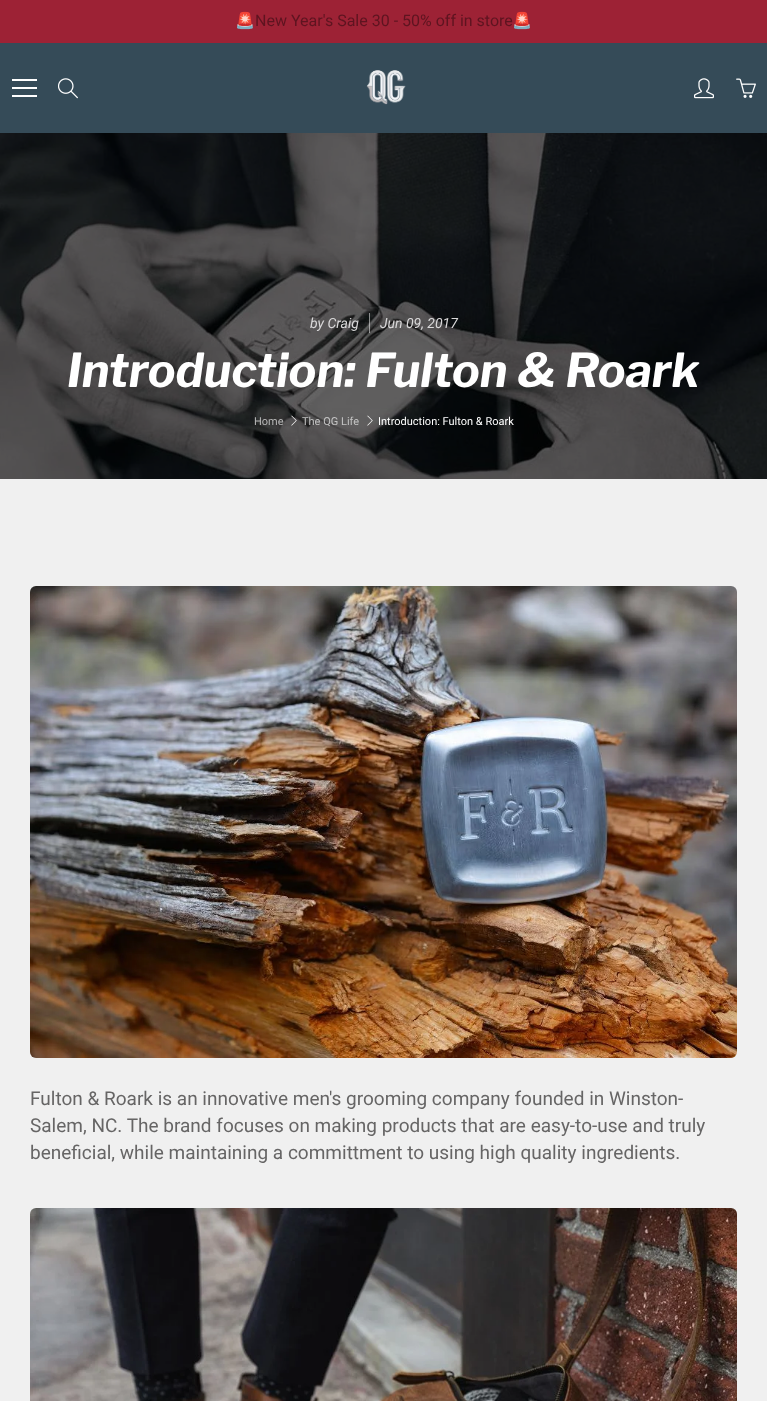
<svg xmlns="http://www.w3.org/2000/svg" xmlns:xlink="http://www.w3.org/1999/xlink" width="767" height="1401" viewBox="0 0 767 1401">
<style>
.cls-1{font:16px Noto Color Emoji;fill:#5e1420}
.cls-2{font:16px Roboto;fill:#5e1420}
.cls-3{font:italic 14px Roboto;fill:#dad9da}
.cls-4{font:italic bold 46.5px Libre Franklin;fill:#ffffff}
.cls-5{font:11px Roboto;fill:#b7b7b7}
.cls-6{font:11px Roboto;fill:#c3c3c3}
.cls-7{font:11px Roboto;fill:#ffffff}
.cls-8{font:19px Roboto;fill:#666565}
</style>
<rect width="100%" height="100%" fill="#f0f0f0"/>
<rect fill="#9d2235" x="0" y="0" width="767" height="43"/>
<rect fill="#354b58" x="0" y="43" width="767" height="90"/>
<rect fill="#ffffff" x="12" y="87" width="25" height="2"/>
<rect fill="#ffffff" x="12" y="79" width="25" height="2"/>
<rect fill="#ffffff" x="12" y="95" width="25" height="2"/>
<image xlink:href="image0.png" x="58" y="78" width="20" height="21"/>
<image xlink:href="image1.png" x="366" y="70" width="40" height="35"/>
<image xlink:href="image2.png" x="694" y="78" width="20" height="21"/>
<image xlink:href="image3.png" x="736" y="78" width="20" height="20"/>
<image xlink:href="image4.png" x="0" y="133" width="767" height="346"/>
<rect fill="#ffffff" fill-opacity="0.5" x="369" y="313" width="1" height="20"/>
<image xlink:href="image5.png" x="291" y="415" width="6" height="11"/>
<image xlink:href="image6.png" x="367" y="415" width="6" height="11"/>
<image xlink:href="image7.png" x="30" y="586" width="707" height="472"/>
<image xlink:href="image8.png" x="30" y="1208" width="707" height="193"/>
<text class="cls-1" x="235" y="26">🚨</text>
<text class="cls-2" x="255" y="26">New Year's Sale 30 - 50% off in store</text>
<text class="cls-1" x="512" y="26">🚨</text>
<text class="cls-3" x="310" y="328">by Craig</text>
<text class="cls-3" x="380" y="328">Jun 09, 2017</text>
<text class="cls-4" x="67" y="387">Introduction: Fulton &amp; Roark</text>
<text class="cls-5" x="254" y="425">Home</text>
<text class="cls-6" x="302" y="425">The QG Life</text>
<text class="cls-7" x="378" y="425">Introduction: Fulton &amp; Roark</text>
<text class="cls-8"><tspan x="30" y="1105">Fulton &amp; Roark is an innovative men's grooming company founded in Winston-</tspan><tspan x="30" y="1132">Salem, NC. The brand focuses on making products that are easy-to-use and truly</tspan><tspan x="30" y="1159">beneficial, while maintaining a committment to using high quality ingredients.</tspan></text>
</svg>
